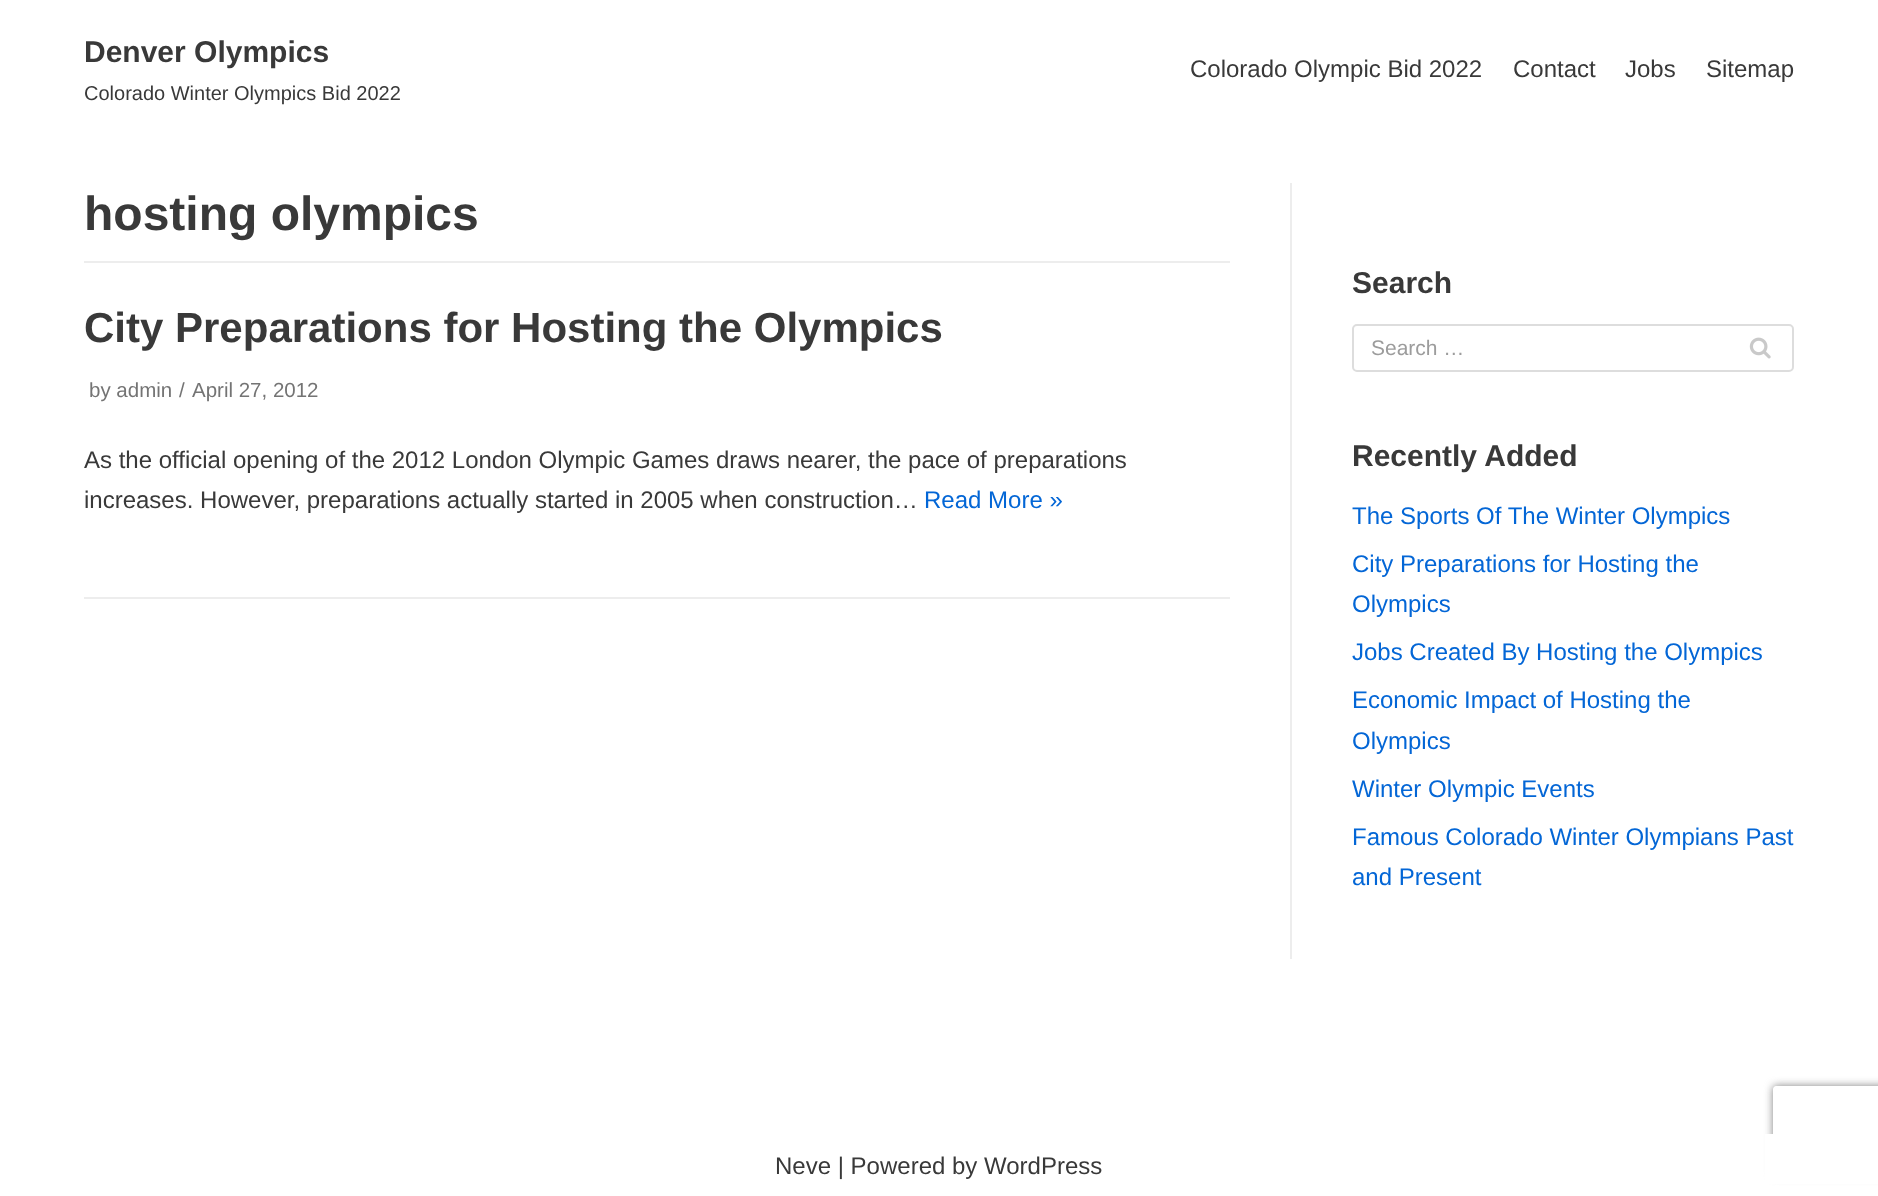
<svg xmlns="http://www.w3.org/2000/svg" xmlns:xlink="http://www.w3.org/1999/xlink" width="1878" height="1196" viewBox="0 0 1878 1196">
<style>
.cls-1{font:bold 30px Liberation Sans;fill:#393939}
.cls-2{font:20px Liberation Sans;fill:#393939}
.cls-3{font:24px Liberation Sans;fill:#393939}
.cls-4{font:bold 48px Liberation Sans;fill:#393939}
.cls-5{font:bold 42px Liberation Sans;fill:#393939}
.cls-6{font:20.5px Liberation Sans;fill:#747474}
.cls-7{font:24px Liberation Sans;fill:#0366d6}
.cls-8{font:21px Liberation Sans;fill:#9c9c9c}
</style>
<defs>
<clipPath id="clip1"><path d="M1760 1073H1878V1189H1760ZM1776 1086H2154C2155.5 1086 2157 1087.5 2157 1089V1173C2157 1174.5 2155.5 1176 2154 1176H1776C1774.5 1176 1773 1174.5 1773 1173V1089C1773 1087.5 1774.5 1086 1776 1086Z" clip-rule="evenodd"/></clipPath>
</defs>
<rect width="100%" height="100%" fill="#ffffff"/>
<rect fill="#ededed" x="84" y="261" width="1146" height="2"/>
<rect fill="#ededed" x="84" y="597" width="1146" height="2"/>
<rect fill="#ededed" x="1290" y="183" width="2" height="776"/>
<rect fill="none" stroke="#dddddd" stroke-width="2" x="1353" y="325" width="440" height="46" rx="4"/>
<image xlink:href="image0.png" x="1749" y="337" width="22" height="22"/>
<g clip-path="url(#clip1)">
<rect fill="#808080" filter="blur(4px)" x="1773" y="1086" width="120" height="90" rx="3"/>
</g>
<rect fill="#ffffff" x="1765" y="1134" width="113" height="50"/>
<text class="cls-1" x="84" y="62">Denver Olympics</text>
<text class="cls-2" x="84" y="100">Colorado Winter Olympics Bid 2022</text>
<text class="cls-3" x="1190" y="77">Colorado Olympic Bid 2022</text>
<text class="cls-3" x="1513" y="77">Contact</text>
<text class="cls-3" x="1625" y="77">Jobs</text>
<text class="cls-3" x="1706" y="77">Sitemap</text>
<text class="cls-4" x="84" y="230">hosting olympics</text>
<text class="cls-5" x="84" y="342">City Preparations for Hosting the Olympics</text>
<text class="cls-6" x="89" y="397">by admin</text>
<text class="cls-6" x="179" y="397">/</text>
<text class="cls-6" x="192" y="397">April 27, 2012</text>
<text class="cls-3"><tspan x="84" y="468">As the official opening of the 2012 London Olympic Games draws nearer, the pace of preparations</tspan><tspan x="84" y="508">increases. However, preparations actually started in 2005 when construction…</tspan></text>
<text class="cls-7" x="924" y="508">Read More »</text>
<text class="cls-1" x="1352" y="293">Search</text>
<text class="cls-8" x="1371" y="355">Search …</text>
<text class="cls-1" x="1352" y="466">Recently Added</text>
<text class="cls-7" x="1352" y="524">The Sports Of The Winter Olympics</text>
<text class="cls-7"><tspan x="1352" y="572">City Preparations for Hosting the</tspan><tspan x="1352" y="612">Olympics</tspan></text>
<text class="cls-7" x="1352" y="660">Jobs Created By Hosting the Olympics</text>
<text class="cls-7"><tspan x="1352" y="708">Economic Impact of Hosting the</tspan><tspan x="1352" y="749">Olympics</tspan></text>
<text class="cls-7" x="1352" y="797">Winter Olympic Events</text>
<text class="cls-7"><tspan x="1352" y="845">Famous Colorado Winter Olympians Past</tspan><tspan x="1352" y="885">and Present</tspan></text>
<text class="cls-3" x="775" y="1174">Neve | Powered by WordPress</text>
</svg>
